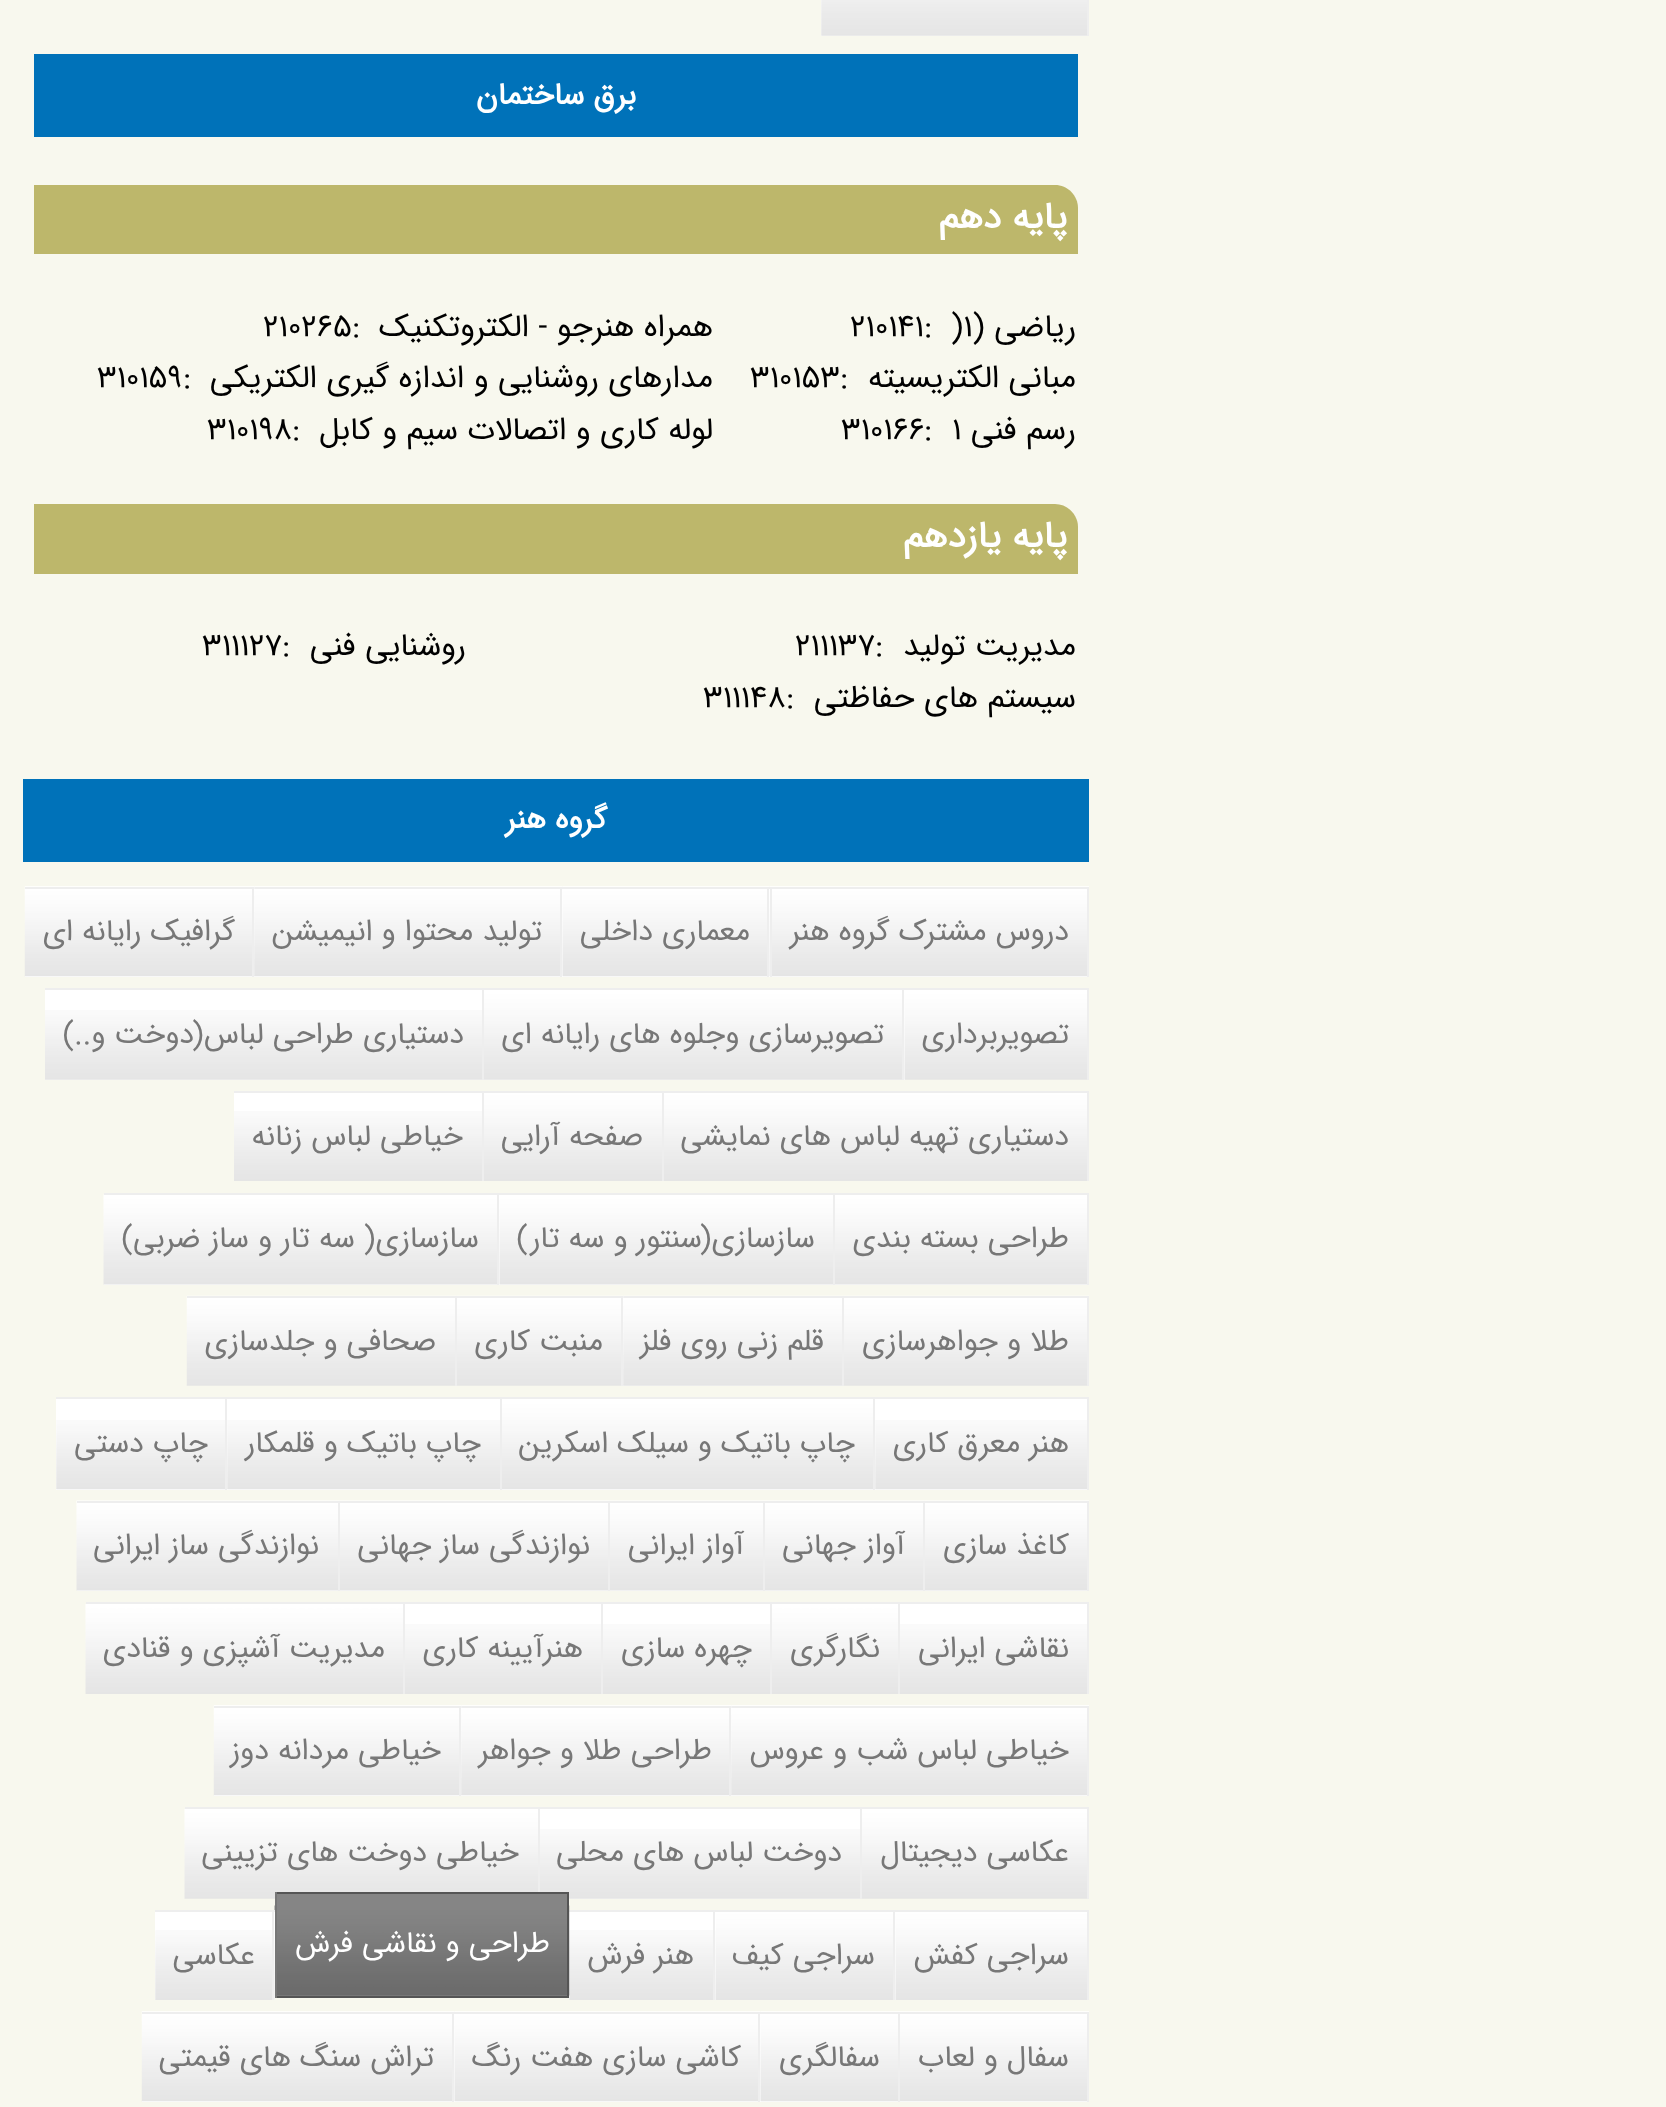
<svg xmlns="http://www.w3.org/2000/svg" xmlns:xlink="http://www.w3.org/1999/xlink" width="1666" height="2107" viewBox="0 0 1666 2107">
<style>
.cls-1{font:bold 30.5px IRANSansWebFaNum;direction:rtl;fill:#ffffff}
.cls-2{font:bold 37px IRANSansWebFaNum;direction:rtl;fill:#ffffff}
.cls-3{font:31.5px IRANSansWebFaNum;direction:rtl;fill:#000000}
.cls-4{font:31.5px IRANSansWebFaNum;fill:#000000}
.cls-5{font:30px IRANSansWebFaNum;direction:rtl;fill:#777777}
.cls-6{font:30px IRANSansWebFaNum;direction:rtl;fill:#ffffff}
</style>
<rect width="100%" height="100%" fill="#f8f8ee"/>
<rect fill="#ffffff" x="821" y="0" width="266" height="36"/>
<image xlink:href="image0.png" x="821" y="0" width="266" height="36"/>
<rect fill="#eeeeee" x="1087" y="0" width="2" height="36"/>
<rect fill="#0072b9" x="34" y="54" width="1044" height="83"/>
<path fill="#bdb76b" d="M34 185H1055C1067.5 185 1078 195.5 1078 208V254H34Z"/>
<path fill="#bdb76b" d="M34 504H1055C1067.5 504 1078 514.5 1078 527V574H34Z"/>
<rect fill="#0072b9" x="23" y="779" width="1066" height="83"/>
<rect fill="#ffffff" x="772" y="976" width="315" height="1"/>
<image xlink:href="image1.png" x="769" y="886" width="320" height="91"/>
<rect fill="#eeeeee" x="770" y="887" width="319" height="2"/>
<rect fill="#eeeeee" x="1087" y="887" width="2" height="90"/>
<rect fill="#eeeeee" x="770" y="887" width="2" height="90"/>
<rect fill="#ffffff" x="563" y="889" width="207" height="88"/>
<image xlink:href="image2.png" x="562" y="886" width="208" height="91"/>
<rect fill="#eeeeee" x="563" y="887" width="207" height="2"/>
<rect fill="#eeeeee" x="767" y="887" width="2" height="90"/>
<rect fill="#ffffff" x="254" y="889" width="309" height="88"/>
<image xlink:href="image3.png" x="254" y="886" width="309" height="91"/>
<rect fill="#eeeeee" x="254" y="887" width="309" height="2"/>
<rect fill="#eeeeee" x="560" y="887" width="2" height="90"/>
<rect fill="#ffffff" x="25" y="976" width="227" height="1"/>
<image xlink:href="image4.png" x="24" y="886" width="231" height="91"/>
<rect fill="#eeeeee" x="25" y="887" width="229" height="2"/>
<rect fill="#eeeeee" x="252" y="887" width="2" height="90"/>
<image xlink:href="image5.png" x="905" y="990" width="182" height="90"/>
<rect fill="#eeeeee" x="45" y="988" width="1044" height="2"/>
<rect fill="#eeeeee" x="1087" y="988" width="2" height="92"/>
<rect fill="#ffffff" x="484" y="990" width="421" height="90"/>
<image xlink:href="image6.png" x="484" y="990" width="421" height="90"/>
<rect fill="#eeeeee" x="902" y="988" width="2" height="92"/>
<rect fill="#ffffff" x="45" y="990" width="437" height="90"/>
<image xlink:href="image7.png" x="45" y="1010" width="437" height="70"/>
<rect fill="#eeeeee" x="482" y="988" width="2" height="92"/>
<image xlink:href="image8.png" x="664" y="1093" width="423" height="88"/>
<rect fill="#eeeeee" x="234" y="1091" width="855" height="2"/>
<rect fill="#eeeeee" x="1087" y="1091" width="2" height="90"/>
<image xlink:href="image9.png" x="484" y="1093" width="178" height="88"/>
<rect fill="#eeeeee" x="662" y="1091" width="2" height="90"/>
<rect fill="#ffffff" x="234" y="1093" width="248" height="18"/>
<image xlink:href="image10.png" x="234" y="1111" width="248" height="70"/>
<rect fill="#eeeeee" x="482" y="1091" width="2" height="90"/>
<rect fill="#ffffff" x="835" y="1284" width="252" height="1"/>
<image xlink:href="image11.png" x="835" y="1195" width="252" height="90"/>
<rect fill="#eeeeee" x="500" y="1193" width="589" height="2"/>
<rect fill="#eeeeee" x="1087" y="1193" width="2" height="92"/>
<rect fill="#ffffff" x="500" y="1284" width="333" height="1"/>
<image xlink:href="image12.png" x="500" y="1195" width="333" height="90"/>
<rect fill="#eeeeee" x="833" y="1193" width="2" height="92"/>
<rect fill="#ffffff" x="104" y="1195" width="396" height="90"/>
<image xlink:href="image13.png" x="103" y="1194" width="397" height="91"/>
<rect fill="#eeeeee" x="104" y="1193" width="396" height="2"/>
<rect fill="#eeeeee" x="497" y="1193" width="2" height="92"/>
<image xlink:href="image14.png" x="843" y="1295" width="246" height="91"/>
<rect fill="#eeeeee" x="844" y="1296" width="245" height="2"/>
<rect fill="#eeeeee" x="1087" y="1296" width="2" height="90"/>
<rect fill="#ffffff" x="623" y="1298" width="219" height="88"/>
<image xlink:href="image15.png" x="623" y="1295" width="221" height="91"/>
<rect fill="#eeeeee" x="623" y="1296" width="221" height="2"/>
<rect fill="#eeeeee" x="842" y="1296" width="2" height="90"/>
<image xlink:href="image16.png" x="456" y="1295" width="168" height="91"/>
<rect fill="#eeeeee" x="457" y="1296" width="166" height="2"/>
<rect fill="#eeeeee" x="621" y="1296" width="2" height="90"/>
<image xlink:href="image17.png" x="186" y="1295" width="271" height="91"/>
<rect fill="#eeeeee" x="187" y="1296" width="270" height="2"/>
<rect fill="#eeeeee" x="455" y="1296" width="2" height="90"/>
<rect fill="#ffffff" x="875" y="1399" width="212" height="91"/>
<image xlink:href="image18.png" x="875" y="1420" width="212" height="70"/>
<rect fill="#eeeeee" x="56" y="1397" width="1033" height="2"/>
<rect fill="#eeeeee" x="1087" y="1397" width="2" height="93"/>
<rect fill="#ffffff" x="502" y="1399" width="371" height="91"/>
<image xlink:href="image19.png" x="502" y="1400" width="371" height="90"/>
<rect fill="#eeeeee" x="873" y="1397" width="2" height="93"/>
<rect fill="#ffffff" x="227" y="1399" width="273" height="91"/>
<image xlink:href="image20.png" x="227" y="1420" width="273" height="70"/>
<rect fill="#eeeeee" x="500" y="1397" width="2" height="93"/>
<rect fill="#ffffff" x="56" y="1399" width="169" height="91"/>
<image xlink:href="image21.png" x="56" y="1420" width="169" height="70"/>
<rect fill="#eeeeee" x="225" y="1397" width="2" height="93"/>
<rect fill="#ffffff" x="925" y="1590" width="162" height="1"/>
<image xlink:href="image22.png" x="924" y="1500" width="165" height="91"/>
<rect fill="#eeeeee" x="925" y="1501" width="164" height="2"/>
<rect fill="#eeeeee" x="1087" y="1501" width="2" height="90"/>
<rect fill="#ffffff" x="765" y="1590" width="158" height="1"/>
<image xlink:href="image23.png" x="765" y="1500" width="160" height="91"/>
<rect fill="#eeeeee" x="765" y="1501" width="160" height="2"/>
<rect fill="#eeeeee" x="923" y="1501" width="2" height="90"/>
<rect fill="#ffffff" x="610" y="1590" width="153" height="1"/>
<image xlink:href="image24.png" x="609" y="1500" width="156" height="91"/>
<rect fill="#eeeeee" x="610" y="1501" width="155" height="2"/>
<rect fill="#eeeeee" x="763" y="1501" width="2" height="90"/>
<rect fill="#ffffff" x="340" y="1590" width="268" height="1"/>
<image xlink:href="image25.png" x="339" y="1500" width="271" height="91"/>
<rect fill="#eeeeee" x="340" y="1501" width="270" height="2"/>
<rect fill="#eeeeee" x="608" y="1501" width="2" height="90"/>
<rect fill="#ffffff" x="77" y="1590" width="261" height="1"/>
<image xlink:href="image26.png" x="76" y="1500" width="264" height="91"/>
<rect fill="#eeeeee" x="77" y="1501" width="263" height="2"/>
<rect fill="#eeeeee" x="338" y="1501" width="2" height="90"/>
<rect fill="#ffffff" x="900" y="1604" width="187" height="20"/>
<image xlink:href="image27.png" x="900" y="1624" width="187" height="70"/>
<rect fill="#eeeeee" x="86" y="1602" width="1003" height="2"/>
<rect fill="#eeeeee" x="1087" y="1602" width="2" height="92"/>
<image xlink:href="image28.png" x="772" y="1604" width="126" height="90"/>
<rect fill="#eeeeee" x="898" y="1602" width="2" height="92"/>
<rect fill="#ffffff" x="603" y="1604" width="167" height="20"/>
<image xlink:href="image29.png" x="603" y="1624" width="167" height="70"/>
<rect fill="#eeeeee" x="770" y="1602" width="2" height="92"/>
<rect fill="#ffffff" x="405" y="1604" width="196" height="20"/>
<image xlink:href="image30.png" x="405" y="1624" width="196" height="70"/>
<rect fill="#eeeeee" x="601" y="1602" width="2" height="92"/>
<image xlink:href="image31.png" x="85" y="1604" width="318" height="90"/>
<rect fill="#eeeeee" x="403" y="1602" width="2" height="92"/>
<rect fill="#ffffff" x="731" y="1708" width="356" height="88"/>
<image xlink:href="image32.png" x="731" y="1705" width="358" height="91"/>
<rect fill="#eeeeee" x="731" y="1706" width="358" height="2"/>
<rect fill="#eeeeee" x="1087" y="1706" width="2" height="90"/>
<rect fill="#ffffff" x="461" y="1708" width="268" height="88"/>
<image xlink:href="image33.png" x="461" y="1705" width="271" height="91"/>
<rect fill="#eeeeee" x="461" y="1706" width="270" height="2"/>
<rect fill="#eeeeee" x="729" y="1706" width="2" height="90"/>
<rect fill="#ffffff" x="214" y="1795" width="245" height="1"/>
<image xlink:href="image34.png" x="213" y="1705" width="249" height="91"/>
<rect fill="#eeeeee" x="214" y="1706" width="247" height="2"/>
<rect fill="#eeeeee" x="459" y="1706" width="2" height="90"/>
<image xlink:href="image35.png" x="862" y="1809" width="225" height="90"/>
<rect fill="#eeeeee" x="185" y="1807" width="904" height="2"/>
<rect fill="#eeeeee" x="1087" y="1807" width="2" height="92"/>
<rect fill="#ffffff" x="540" y="1809" width="320" height="90"/>
<image xlink:href="image36.png" x="540" y="1829" width="320" height="70"/>
<rect fill="#eeeeee" x="860" y="1807" width="2" height="92"/>
<image xlink:href="image37.png" x="184" y="1809" width="354" height="90"/>
<rect fill="#eeeeee" x="538" y="1807" width="2" height="92"/>
<image xlink:href="image38.png" x="896" y="1912" width="191" height="88"/>
<rect fill="#eeeeee" x="569" y="1910" width="520" height="2"/>
<rect fill="#eeeeee" x="1087" y="1910" width="2" height="90"/>
<rect fill="#ffffff" x="895" y="1912" width="1" height="88"/>
<image xlink:href="image39.png" x="716" y="1912" width="180" height="88"/>
<rect fill="#eeeeee" x="893" y="1910" width="2" height="90"/>
<rect fill="#ffffff" x="569" y="1912" width="147" height="88"/>
<image xlink:href="image40.png" x="569" y="1930" width="147" height="70"/>
<rect fill="#eeeeee" x="713" y="1910" width="2" height="90"/>
<rect fill="#858585" x="277" y="1894" width="290" height="102"/>
<image xlink:href="image41.png" x="274" y="1905" width="296" height="91"/>
<rect fill="#555555" x="275" y="1892" width="294" height="2"/>
<rect fill="#555555" x="567" y="1892" width="2" height="106"/>
<rect fill="#555555" x="275" y="1996" width="294" height="2"/>
<rect fill="#777777" x="275" y="1892" width="2" height="106"/>
<rect fill="#ffffff" x="155" y="1912" width="120" height="88"/>
<image xlink:href="image42.png" x="155" y="1930" width="120" height="70"/>
<rect fill="#eeeeee" x="155" y="1910" width="120" height="2"/>
<rect fill="#eeeeee" x="272" y="1910" width="2" height="90"/>
<rect fill="#ffffff" x="900" y="2101" width="187" height="1"/>
<image xlink:href="image43.png" x="900" y="2011" width="189" height="91"/>
<rect fill="#eeeeee" x="900" y="2012" width="189" height="2"/>
<rect fill="#eeeeee" x="1087" y="2012" width="2" height="90"/>
<rect fill="#ffffff" x="761" y="2101" width="137" height="1"/>
<image xlink:href="image44.png" x="760" y="2011" width="140" height="91"/>
<rect fill="#eeeeee" x="761" y="2012" width="139" height="2"/>
<rect fill="#eeeeee" x="898" y="2012" width="2" height="90"/>
<rect fill="#ffffff" x="455" y="2014" width="306" height="88"/>
<image xlink:href="image45.png" x="454" y="2011" width="307" height="91"/>
<rect fill="#eeeeee" x="455" y="2012" width="306" height="2"/>
<rect fill="#eeeeee" x="758" y="2012" width="2" height="90"/>
<rect fill="#ffffff" x="142" y="2014" width="313" height="88"/>
<image xlink:href="image46.png" x="141" y="2011" width="314" height="91"/>
<rect fill="#eeeeee" x="142" y="2012" width="313" height="2"/>
<rect fill="#eeeeee" x="452" y="2012" width="2" height="90"/>
<text class="cls-1" x="636" y="104">برق ساختمان</text>
<text class="cls-2" x="1067" y="228">پایه دهم</text>
<text class="cls-3" x="1076" y="336">ریاضی (</text>
<text class="cls-4" x="951" y="336">)1</text>
<text class="cls-4" x="924" y="336">:</text>
<text class="cls-4" x="850" y="336">210141</text>
<text class="cls-3" x="713" y="336">همراه هنرجو - الکتروتکنیک</text>
<text class="cls-4" x="352" y="336">:</text>
<text class="cls-4" x="263" y="336">210265</text>
<text class="cls-3" x="1076" y="387">مبانی الکتریسیته</text>
<text class="cls-4" x="840" y="387">:</text>
<text class="cls-4" x="750" y="387">310153</text>
<text class="cls-3" x="713" y="387">مدارهای روشنایی و اندازه گیری الکتریکی</text>
<text class="cls-4" x="183" y="387">:</text>
<text class="cls-4" x="97" y="387">310159</text>
<text class="cls-3" x="1076" y="439">رسم فنی</text>
<text class="cls-4" x="952" y="439">1</text>
<text class="cls-4" x="924" y="439">:</text>
<text class="cls-4" x="841" y="439">310166</text>
<text class="cls-3" x="713" y="439">لوله کاری و اتصالات سیم و کابل</text>
<text class="cls-4" x="292" y="439">:</text>
<text class="cls-4" x="207" y="439">310198</text>
<text class="cls-2" x="1067" y="547">پایه یازدهم</text>
<text class="cls-3" x="1076" y="655">مدیریت تولید</text>
<text class="cls-4" x="875" y="655">:</text>
<text class="cls-4" x="795" y="655">211137</text>
<text class="cls-3" x="466" y="655">روشنایی فنی</text>
<text class="cls-4" x="282" y="655">:</text>
<text class="cls-4" x="202" y="655">311127</text>
<text class="cls-3" x="1076" y="707">سیستم های حفاظتی</text>
<text class="cls-4" x="786" y="707">:</text>
<text class="cls-4" x="703" y="707">311148</text>
<text class="cls-1" x="607" y="828">گروه هنر</text>
<text class="cls-5" x="1069" y="940">دروس مشترک گروه هنر</text>
<text class="cls-5" x="750" y="940">معماری داخلی</text>
<text class="cls-5" x="542" y="940">تولید محتوا و انیمیشن</text>
<text class="cls-5" x="235" y="940">گرافیک رایانه ای</text>
<text class="cls-5" x="1069" y="1043">تصویربرداری</text>
<text class="cls-5" x="884" y="1043">تصویرسازی وجلوه های رایانه ای</text>
<text class="cls-5" x="464" y="1043">دستیاری طراحی لباس(دوخت و..)</text>
<text class="cls-5" x="1069" y="1145">دستیاری تهیه لباس های نمایشی</text>
<text class="cls-5" x="643" y="1145">صفحه آرایی</text>
<text class="cls-5" x="463" y="1145">خیاطی لباس زنانه</text>
<text class="cls-5" x="1069" y="1247">طراحی بسته بندی</text>
<text class="cls-5" x="815" y="1247">سازسازی(سنتور و سه تار)</text>
<text class="cls-5" x="479" y="1247">سازسازی( سه تار و ساز ضربی)</text>
<text class="cls-5" x="1069" y="1350">طلا و جواهرسازی</text>
<text class="cls-5" x="824" y="1350">قلم زنی روی فلز</text>
<text class="cls-5" x="603" y="1350">منبت کاری</text>
<text class="cls-5" x="436" y="1350">صحافی و جلدسازی</text>
<text class="cls-5" x="1069" y="1452">هنر معرق کاری</text>
<text class="cls-5" x="855" y="1452">چاپ باتیک و سیلک اسکرین</text>
<text class="cls-5" x="481" y="1452">چاپ باتیک و قلمکار</text>
<text class="cls-5" x="208" y="1452">چاپ دستی</text>
<text class="cls-5" x="1069" y="1554">کاغذ سازی</text>
<text class="cls-5" x="905" y="1554">آواز جهانی</text>
<text class="cls-5" x="744" y="1554">آواز ایرانی</text>
<text class="cls-5" x="590" y="1554">نوازندگی ساز جهانی</text>
<text class="cls-5" x="319" y="1554">نوازندگی ساز ایرانی</text>
<text class="cls-5" x="1069" y="1657">نقاشی ایرانی</text>
<text class="cls-5" x="880" y="1657">نگارگری</text>
<text class="cls-5" x="752" y="1657">چهره سازی</text>
<text class="cls-5" x="583" y="1657">هنرآیینه کاری</text>
<text class="cls-5" x="385" y="1657">مدیریت آشپزی و قنادی</text>
<text class="cls-5" x="1069" y="1759">خیاطی لباس شب و عروس</text>
<text class="cls-5" x="712" y="1759">طراحی طلا و جواهر</text>
<text class="cls-5" x="441" y="1759">خیاطی مردانه دوز</text>
<text class="cls-5" x="1069" y="1861">عکاسی دیجیتال</text>
<text class="cls-5" x="842" y="1861">دوخت لباس های محلی</text>
<text class="cls-5" x="519" y="1861">خیاطی دوخت های تزیینی</text>
<text class="cls-5" x="1069" y="1964">سراجی کفش</text>
<text class="cls-5" x="875" y="1964">سراجی کیف</text>
<text class="cls-5" x="694" y="1964">هنر فرش</text>
<text class="cls-6" x="550" y="1952">طراحی و نقاشی فرش</text>
<text class="cls-5" x="255" y="1964">عکاسی</text>
<text class="cls-5" x="1069" y="2066">سفال و لعاب</text>
<text class="cls-5" x="880" y="2066">سفالگری</text>
<text class="cls-5" x="741" y="2066">کاشی سازی هفت رنگ</text>
<text class="cls-5" x="434" y="2066">تراش سنگ های قیمتی</text>
</svg>
